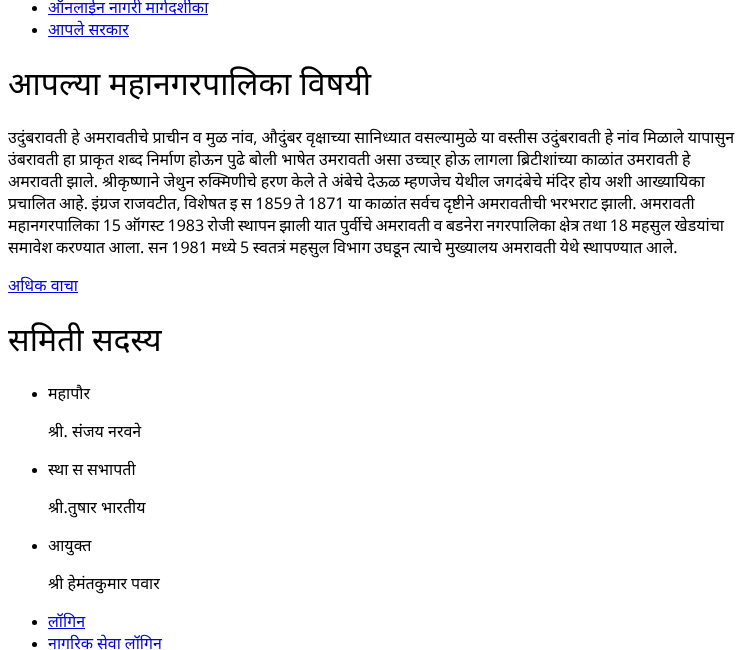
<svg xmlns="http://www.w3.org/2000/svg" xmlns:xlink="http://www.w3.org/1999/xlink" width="749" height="650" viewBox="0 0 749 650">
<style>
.cls-1{font:16px Noto Sans;fill:#0000ee}
.cls-2{font:32px Noto Sans;fill:#000000}
.cls-3{font:16px Noto Sans;fill:#000000}
</style>
<rect width="100%" height="100%" fill="#ffffff"/>
<circle fill="#000000" cx="34.5" cy="8.5" r="2.5"/>
<rect fill="#0000ee" x="48" y="14" width="160" height="1"/>
<circle fill="#000000" cx="34.5" cy="30.5" r="2.5"/>
<rect fill="#0000ee" x="48" y="36" width="81" height="1"/>
<rect fill="#0000ee" x="8" y="292" width="70" height="1"/>
<circle fill="#000000" cx="34.5" cy="394.5" r="2.5"/>
<circle fill="#000000" cx="34.5" cy="470.5" r="2.5"/>
<circle fill="#000000" cx="34.5" cy="546.5" r="2.5"/>
<circle fill="#000000" cx="34.5" cy="622.5" r="2.5"/>
<rect fill="#0000ee" x="48" y="628" width="37" height="1"/>
<circle fill="#000000" cx="34.5" cy="644.5" r="2.5"/>
<text class="cls-1"><tspan x="48" y="13" word-spacing="-0.2">ऑनलाईन नागरी मार्गदर्शीका</tspan><tspan x="48" y="35">आपले सरकार</tspan></text>
<text class="cls-2" x="8" y="95">आपल्या महानगरपालिका विषयी</text>
<text class="cls-3"><tspan x="8" y="143" word-spacing="-0.2">उदुंबरावती हे अमरावतीचे प्राचीन व मुळ नांव, औदुंबर वृक्षाच्या सानिध्यात वसल्यामुळे या वस्तीस उदुंबरावती हे नांव मिळाले यापासुन</tspan><tspan x="8" y="165" word-spacing="-0.2">उंबरावती हा प्राकृत शब्द निर्माण होऊन पुढे बोली भाषेत उमरावती असा उच्चा्र होऊ लागला ब्रिटीशांच्या काळांत उमरावती हे</tspan><tspan x="8" y="187" word-spacing="-0.2">अमरावती झाले. श्रीकृष्णाने जेथुन रुक्मिणीचे हरण केले ते अंबेचे देऊळ म्हणजेच येथील जगदंबेचे मंदिर होय अशी आख्यायिका</tspan><tspan x="8" y="209" word-spacing="-0.75">प्रचालित आहे. इंग्रज राजवटीत, विशेषत इ स 1859 ते 1871 या काळांत सर्वच दृष्टीने अमरावतीची भरभराट झाली. अमरावती</tspan><tspan x="8" y="231" word-spacing="-0.75">महानगरपालिका 15 ऑगस्ट 1983 रोजी स्थापन झाली यात पुर्वीचे अमरावती व बडनेरा नगरपालिका क्षेत्र तथा 18 महसुल खेडयांचा</tspan><tspan x="8" y="253" word-spacing="-0.5">समावेश करण्यात आला. सन 1981 मध्ये 5 स्वतत्रं महसुल विभाग उघडून त्याचे मुख्यालय अमरावती येथे स्थापण्यात आले.</tspan></text>
<text class="cls-1" x="8" y="291">अधिक वाचा</text>
<text class="cls-2" x="8" y="351">समिती सदस्य</text>
<text class="cls-3" x="48" y="399">महापौर</text>
<text class="cls-3" x="48" y="437">श्री. संंजय नरवने</text>
<text class="cls-3" x="48" y="475" word-spacing="-0.2">स्था स सभापती</text>
<text class="cls-3" x="48" y="513">श्री.तुषार भारतीय</text>
<text class="cls-3" x="48" y="551">आयुक्त</text>
<text class="cls-3" x="48" y="589" word-spacing="-0.2">श्री हेमंतकुमार पवार</text>
<text class="cls-1"><tspan x="48" y="627">लॉगिन</tspan><tspan x="48" y="649" word-spacing="-0.2">नागरिक सेवा लॉगिन</tspan></text>
</svg>
